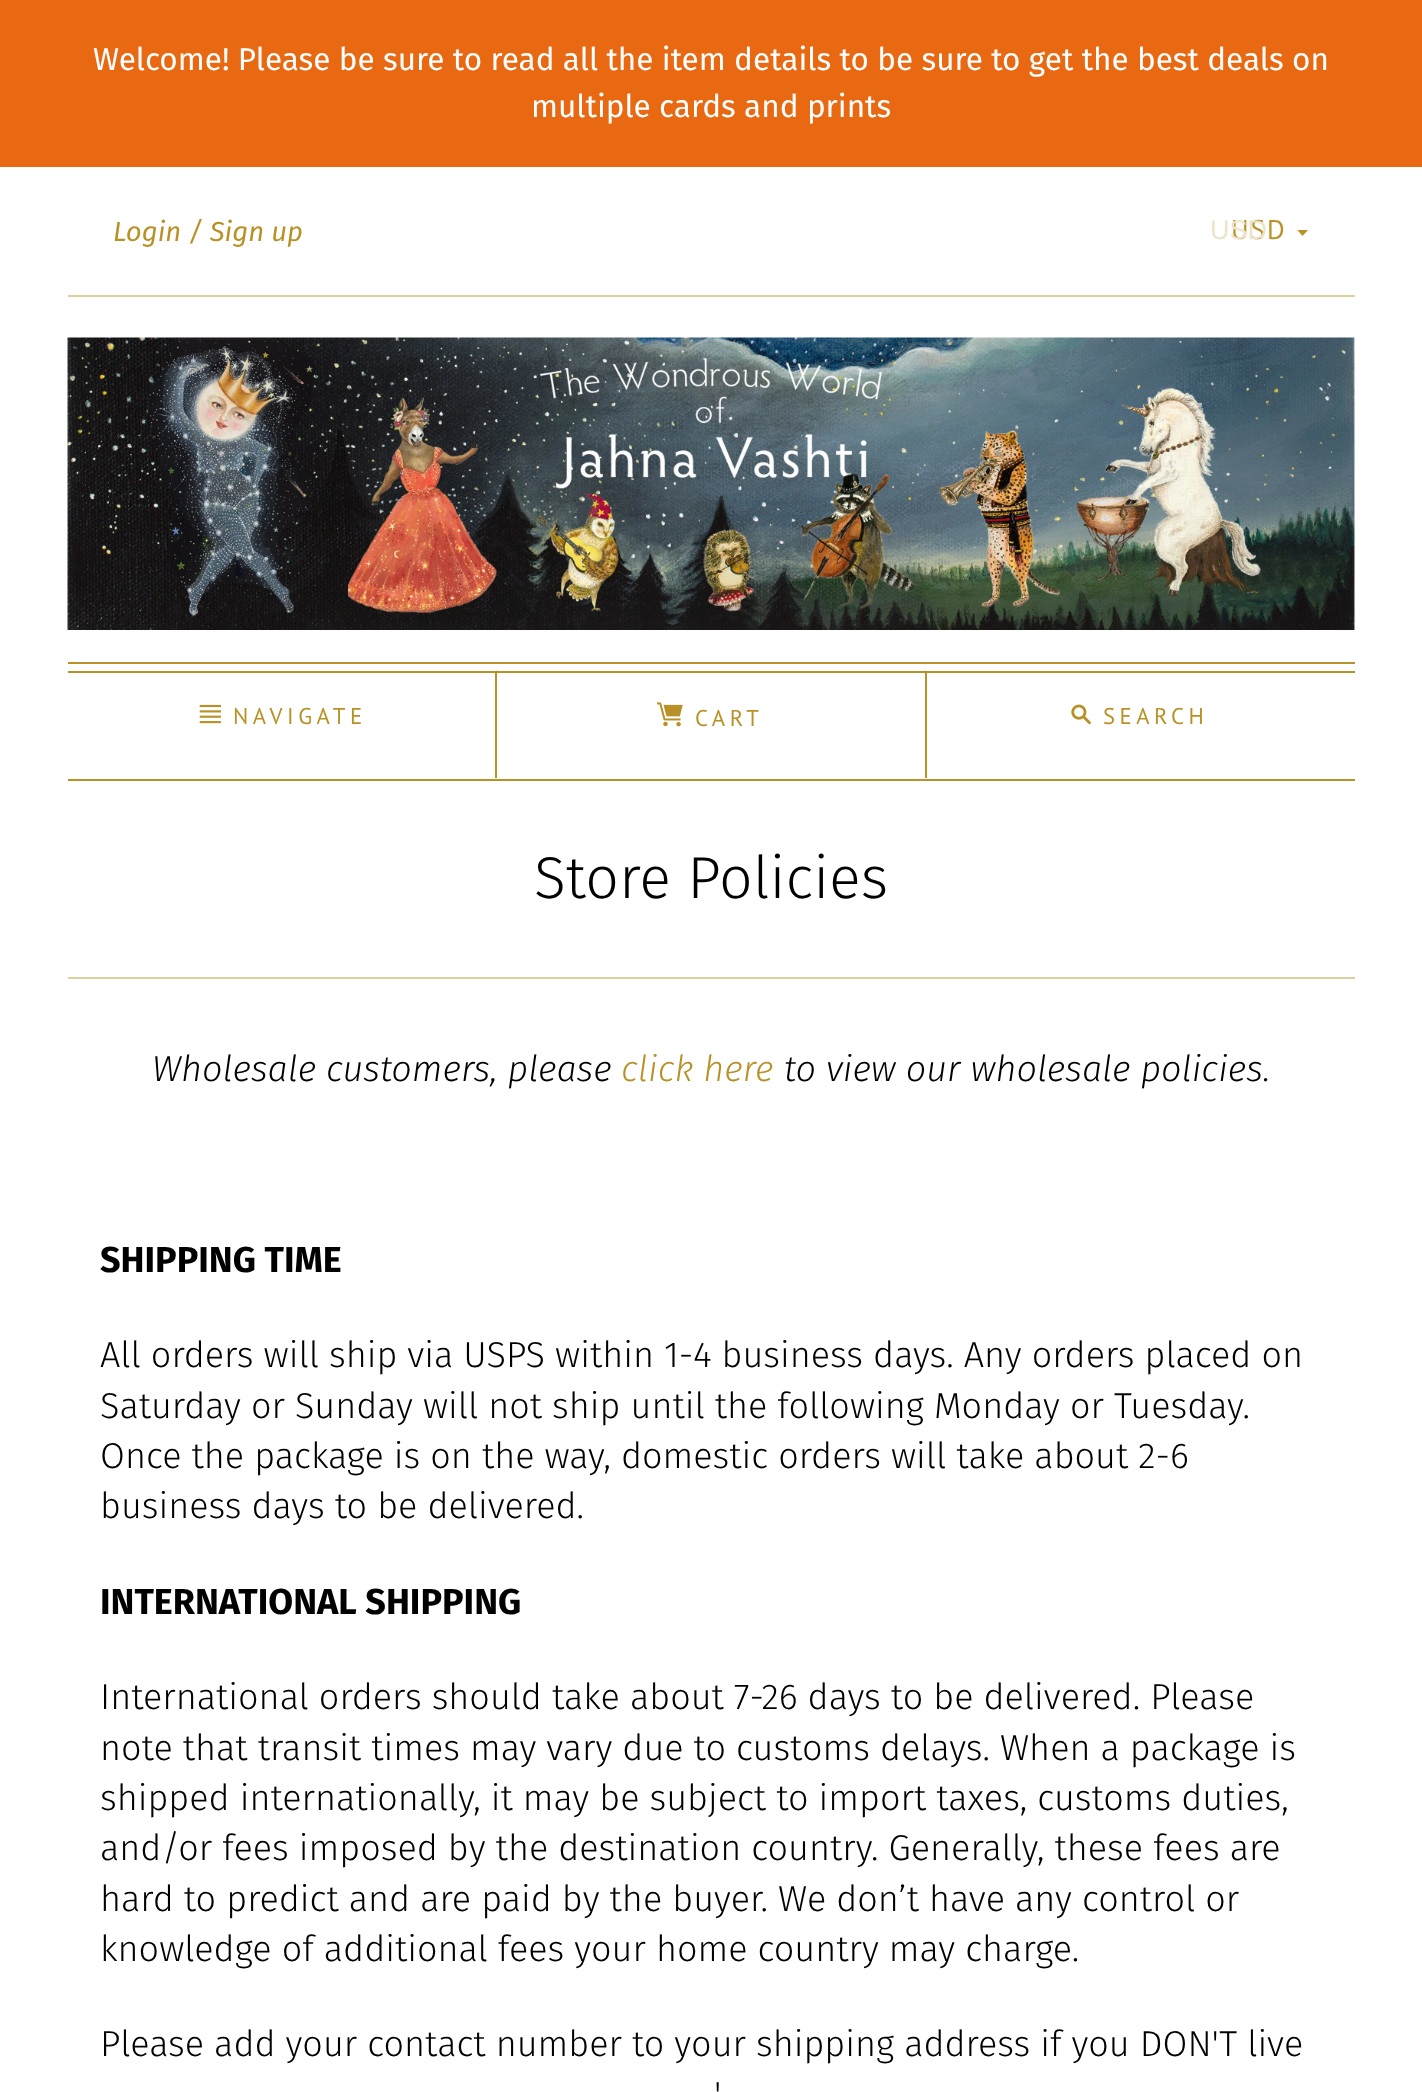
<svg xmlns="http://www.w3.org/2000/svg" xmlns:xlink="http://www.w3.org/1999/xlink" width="1422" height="2092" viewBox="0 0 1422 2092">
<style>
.cls-1{font:31.5px Fira Sans;fill:#ffffff}
.cls-2{font:italic 27.5px Fira Sans;fill:#b89227}
.cls-3{font:27px PT Sans;letter-spacing:2px;fill:#b89227}
.cls-4{font:27px Liberation Sans;fill:#eee4ca}
.cls-5{font:22.75px PT Sans;letter-spacing:4.5px;fill:#b89227}
.cls-6{font:300 59px Fira Sans;fill:#000000}
.cls-7{font:italic 300 36px Fira Sans;fill:#000000}
.cls-8{font:italic 300 36px Fira Sans;fill:#b89227}
.cls-9{font:bold 36px Fira Sans;fill:#000000}
.cls-10{font:300 36px Fira Sans;fill:#000000}
</style>
<defs>
<clipPath id="clip1"><rect x="1296" y="230" width="14" height="6"/></clipPath>
</defs>
<rect width="100%" height="100%" fill="#ffffff"/>
<rect fill="#e96913" x="0" y="0" width="1422" height="167"/>
<rect fill="#dfce9e" x="68" y="295" width="1287" height="2"/>
<g clip-path="url(#clip1)">
<path fill="#b89227" fill-rule="evenodd" d="M1297 229.5H1308.5L1302.5 236"/>
</g>
<image xlink:href="image0.png" x="67" y="337" width="1288" height="293"/>
<rect fill="#b89227" x="68" y="671" width="1287" height="2"/>
<rect fill="#b89227" x="68" y="662" width="1287" height="2"/>
<path fill="#b89227" d="M497 670V778H495V673Z"/>
<image xlink:href="image1.png" x="199" y="704" width="22" height="20"/>
<image xlink:href="image2.png" x="657" y="702" width="26" height="25"/>
<path fill="#b89227" d="M925 778V670L927 673V778Z"/>
<image xlink:href="image3.png" x="1071" y="704" width="20" height="21"/>
<rect fill="#b89227" x="68" y="779" width="1287" height="2"/>
<rect fill="#dfce9e" x="68" y="977" width="1287" height="2"/>
<text class="cls-1" x="93" y="70">Welcome! Please be sure to read all the item details to be sure to get the best deals on</text>
<text class="cls-1" x="531" y="117">multiple cards and prints</text>
<text class="cls-2" x="113" y="241">Login / Sign up</text>
<text class="cls-3" x="1231" y="239">USD</text>
<text class="cls-4" x="1210" y="239">USD</text>
<text class="cls-5" x="233" y="724">NAVIGATE</text>
<text class="cls-5" x="695" y="726">CART</text>
<text class="cls-5" x="1103" y="724">SEARCH</text>
<text class="cls-6" x="534" y="898">Store Policies</text>
<text class="cls-7" x="152" y="1081">Wholesale customers, please</text>
<text class="cls-8" x="621" y="1081">click here</text>
<text class="cls-7" x="784" y="1081">to view our wholesale policies.</text>
<text class="cls-9" x="100" y="1272">SHIPPING TIME</text>
<text class="cls-10"><tspan x="100" y="1367">All orders will ship via USPS within 1-4 business days. Any orders placed on</tspan><tspan x="100" y="1418">Saturday or Sunday will not ship until the following Monday or Tuesday.</tspan><tspan x="100" y="1468">Once the package is on the way, domestic orders will take about 2-6</tspan><tspan x="100" y="1518">business days to be delivered.</tspan></text>
<text class="cls-9" x="100" y="1614">INTERNATIONAL SHIPPING</text>
<text class="cls-10"><tspan x="100" y="1709">International orders should take about 7-26 days to be delivered. Please</tspan><tspan x="100" y="1760">note that transit times may vary due to customs delays. When a package is</tspan><tspan x="100" y="1810">shipped internationally, it may be subject to import taxes, customs duties,</tspan><tspan x="100" y="1860">and/or fees imposed by the destination country. Generally, these fees are</tspan><tspan x="100" y="1911">hard to predict and are paid by the buyer. We don’t have any control or</tspan><tspan x="100" y="1961">knowledge of additional fees your home country may charge.</tspan></text>
<text class="cls-10" x="100" y="2056">Please add your contact number to your shipping address if you DON'T live</text>
<text class="cls-10" x="714" y="2107">'</text>
</svg>
